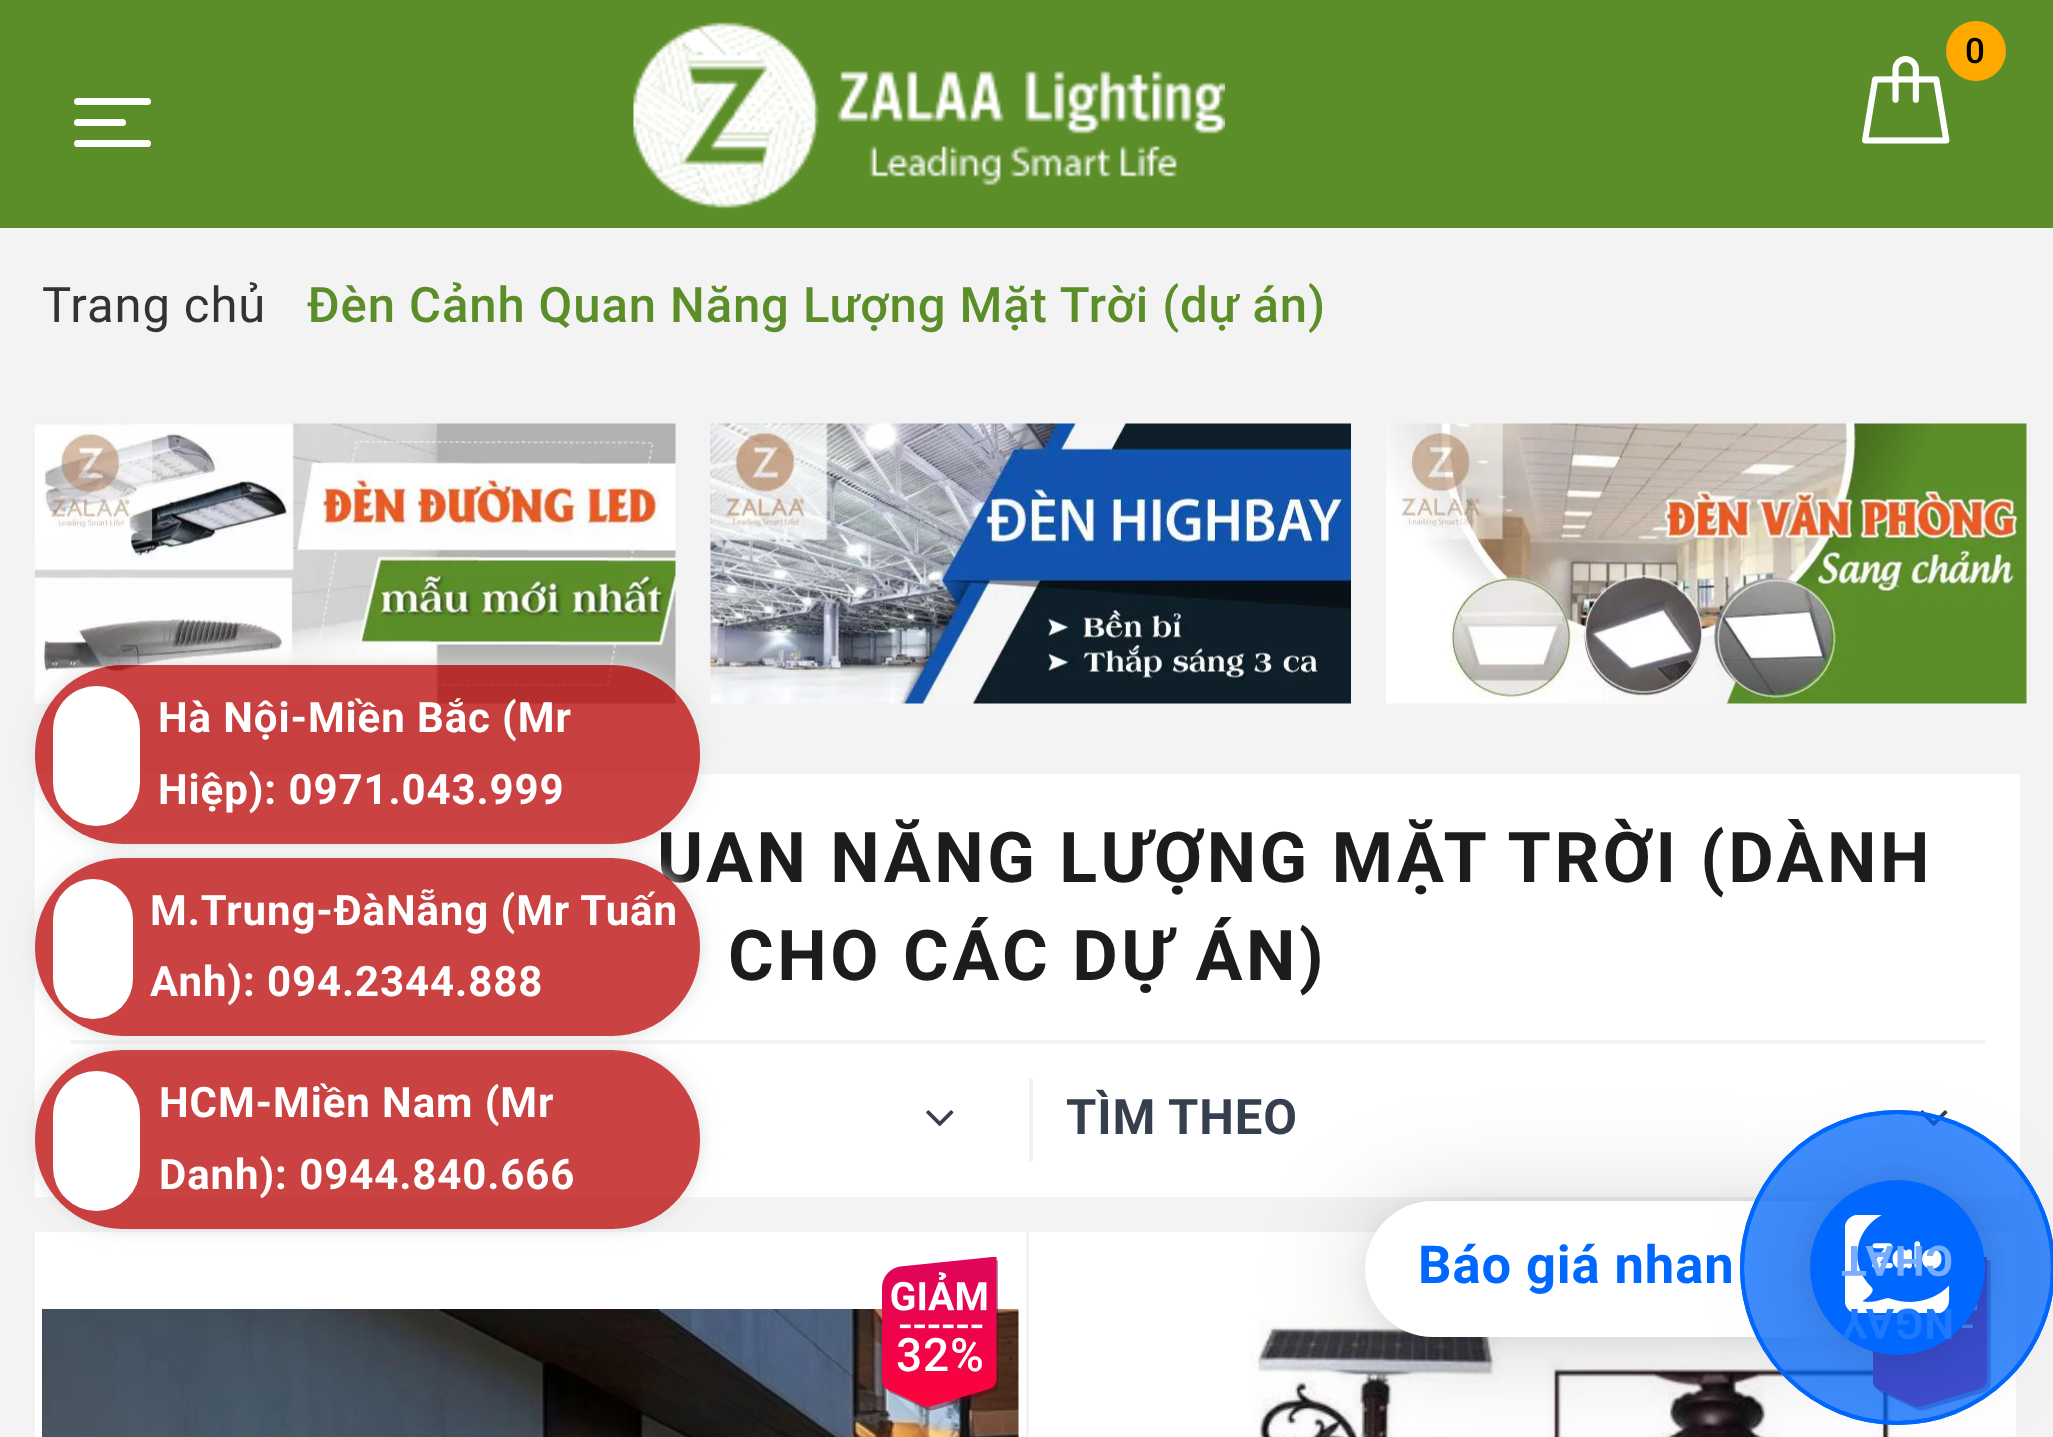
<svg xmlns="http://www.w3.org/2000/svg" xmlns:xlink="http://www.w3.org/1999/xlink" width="2053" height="1437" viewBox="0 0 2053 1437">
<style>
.cls-1{font:500 35px Roboto;letter-spacing:0.9px;fill:#000000}
.cls-2{font:49px Roboto;letter-spacing:0.9px;fill:#333333}
.cls-3{font:500 49px Roboto;letter-spacing:0.9px;fill:#5b8e28}
.cls-4{font:bold 70px Roboto;letter-spacing:3.5px;fill:#1c1c1c}
.cls-5{font:bold 49px Roboto;letter-spacing:0.9px;fill:#363f4d}
.cls-6{font:500 46px Roboto;letter-spacing:0.9px;fill:#ffffff}
.cls-7{font:bold 42px Roboto;letter-spacing:0.9px;fill:#ffffff}
.cls-8{font:bold 52.5px Roboto;letter-spacing:0.9px;fill:#0068ff}
.cls-9{font:bold 42px Roboto;letter-spacing:0.9px;fill:#77aeff}
.cls-10{font:bold 42px Roboto;letter-spacing:0.9px;fill:#1d79ff}
</style>
<defs>
<clipPath id="clip1"><path d="M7 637H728V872H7ZM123 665H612C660.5 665 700 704.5 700 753V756C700 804.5 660.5 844 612 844H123C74.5 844 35 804.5 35 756V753C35 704.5 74.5 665 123 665Z" clip-rule="evenodd"/></clipPath>
<clipPath id="clip2"><path d="M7 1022H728V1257H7ZM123 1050H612C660.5 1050 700 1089.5 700 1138V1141C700 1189.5 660.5 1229 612 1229H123C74.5 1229 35 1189.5 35 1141V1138C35 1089.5 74.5 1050 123 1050Z" clip-rule="evenodd"/></clipPath>
<clipPath id="clip3"><path d="M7 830H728V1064H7ZM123 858H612C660.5 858 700 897.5 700 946V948C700 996.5 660.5 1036 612 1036H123C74.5 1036 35 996.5 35 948V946C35 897.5 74.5 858 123 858Z" clip-rule="evenodd"/></clipPath>
</defs>
<rect width="100%" height="100%" fill="#f3f3f3"/>
<rect fill="#5b8e28" x="0" y="0" width="2053" height="228"/>
<image xlink:href="image0.png" x="633" y="22" width="592" height="187"/>
<image xlink:href="image1.png" x="1862" y="56" width="88" height="88"/>
<circle fill="#ffa800" cx="1976" cy="51" r="30"/>
<rect fill="#ffffff" x="74" y="98" width="77" height="7" rx="3.5"/>
<rect fill="#ffffff" x="74" y="119" width="52" height="7" rx="3.5"/>
<rect fill="#ffffff" x="74" y="140" width="77" height="7" rx="3.5"/>
<image xlink:href="image2.png" x="35" y="423" width="641" height="281"/>
<image xlink:href="image3.png" x="710" y="423" width="641" height="281"/>
<image xlink:href="image4.png" x="1386" y="423" width="641" height="281"/>
<rect fill="#ffffff" x="35" y="774" width="1985" height="423"/>
<rect fill="#f3f3f3" x="70" y="1040" width="1915" height="4"/>
<image xlink:href="image5.png" x="926" y="1110" width="28" height="17"/>
<rect fill="#f3f3f3" x="1029" y="1078" width="4" height="84"/>
<image xlink:href="image5.png" x="1920" y="1110" width="28" height="17"/>
<rect fill="#ffffff" x="35" y="1232" width="991" height="205"/>
<image xlink:href="image6.png" x="42" y="1309" width="977" height="128"/>
<image xlink:href="image7.png" x="882" y="1257" width="116" height="154"/>
<rect fill="#ffffff" x="1029" y="1232" width="987" height="205"/>
<image xlink:href="image8.png" x="1249" y="1317" width="647" height="120"/>
<image xlink:href="image9.png" x="1873" y="1257" width="118" height="154"/>
<g clip-path="url(#clip1)">
<rect fill="#dddddd" filter="blur(9px)" x="35" y="665" width="665" height="179" rx="88"/>
</g>
<g clip-path="url(#clip2)">
<rect fill="#dddddd" filter="blur(9px)" x="35" y="1050" width="665" height="179" rx="88"/>
</g>
<rect fill="#b70100" fill-opacity="0.74" x="35" y="1050" width="665" height="179" rx="88"/>
<rect fill="#ffffff" x="53" y="1071" width="87" height="140" rx="43.5"/>
<rect fill="#000000" fill-opacity="0.16" filter="blur(56px)" x="1365" y="1208" width="487" height="136" rx="68"/>
<rect fill="#000000" fill-opacity="0.06" filter="blur(10.5px)" x="1365" y="1204" width="487" height="137" rx="68.5"/>
<path fill="#ffffff" d="M1433 1201H1852V1337H1433C1395.5 1337 1365 1306.5 1365 1269C1365 1231.5 1395.5 1201 1433 1201Z"/>
<circle fill="#0068ff" fill-opacity="0.5" stroke="#0068ff" stroke-width="4" cx="1897.5" cy="1267.5" r="155.5"/>
<circle fill="#0068ff" fill-opacity="0.5" stroke="#0068ff" stroke-width="4" cx="1897.5" cy="1267.5" r="155.5"/>
<rect fill="#000000" fill-opacity="0.16" filter="blur(56px)" x="1810" y="1187" width="175" height="175" rx="87.5"/>
<rect fill="#000000" fill-opacity="0.06" filter="blur(10.5px)" x="1810" y="1183" width="175" height="175" rx="87.5"/>
<circle fill="#0068ff" cx="1897.5" cy="1267.5" r="87.5"/>
<image xlink:href="image10.png" x="1845" y="1215" width="105" height="98"/>
<text class="cls-1" x="1965" y="63">0</text>
<text class="cls-2" x="42" y="322">Trang chủ</text>
<text class="cls-3" x="307" y="322">Đèn Cảnh Quan Năng Lượng Mặt Trời (dự án)</text>
<text class="cls-4" x="657" y="882">UAN NĂNG LƯỢNG MẶT TRỜI (DÀNH</text>
<text class="cls-4" x="728" y="980">CHO CÁC DỰ ÁN)</text>
<text class="cls-5" x="1066" y="1134">TÌM THEO</text>
<text class="cls-6" x="896" y="1371">32%</text>
<rect fill="#b70100" fill-opacity="0.74" x="35" y="665" width="665" height="179" rx="88"/>
<rect fill="#ffffff" x="53" y="686" width="87" height="140" rx="43.5"/>
<text class="cls-7"><tspan x="158" y="732">Hà Nội-Miền Bắc (Mr</tspan><tspan x="158" y="804">Hiệp): 0971.043.999</tspan></text>
<g clip-path="url(#clip3)">
<rect fill="#dddddd" filter="blur(9px)" x="35" y="858" width="665" height="178" rx="88"/>
</g>
<rect fill="#b70100" fill-opacity="0.74" x="35" y="858" width="665" height="178" rx="88"/>
<rect fill="#ffffff" x="53" y="879" width="80" height="140" rx="40"/>
<text class="cls-7"><tspan x="150" y="925">M.Trung-ĐàNẵng (Mr Tuấn</tspan><tspan x="150" y="996">Anh): 094.2344.888</tspan></text>
<text class="cls-7"><tspan x="159" y="1117">HCM-Miền Nam (Mr</tspan><tspan x="159" y="1189">Danh): 0944.840.666</tspan></text>
<text class="cls-8" x="1418" y="1283">Báo giá nhan</text>
<text class="cls-9" x="1953" y="1246" transform="rotate(180 1953 1246)">CHAT</text>
<text class="cls-10" x="1954" y="1309" transform="rotate(180 1954 1309)">NGAY</text>
</svg>
